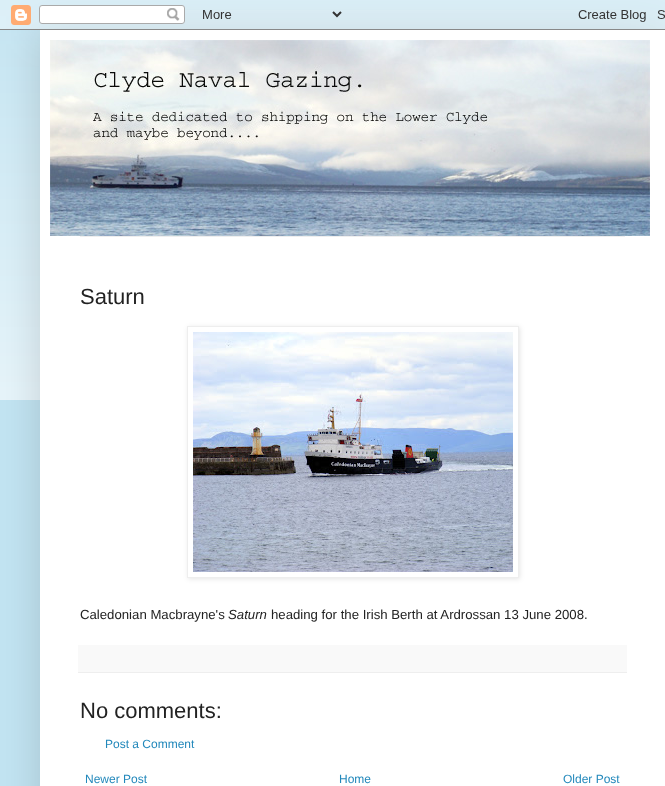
<svg xmlns="http://www.w3.org/2000/svg" xmlns:xlink="http://www.w3.org/1999/xlink" width="665" height="786" viewBox="0 0 665 786">
<style>
.cls-1{font:22px Liberation Sans;fill:#222222}
.cls-2{font:13.2px Liberation Sans;fill:#222222}
.cls-3{font:italic 13.2px Liberation Sans;fill:#222222}
.cls-4{font:12px Liberation Sans;fill:#2288bb}
</style>
<defs>
<clipPath id="clip1"><path d="M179 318H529V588H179ZM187 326H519V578H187Z" clip-rule="evenodd"/></clipPath>
</defs>
<rect width="100%" height="100%" fill="#c2e4f2"/>
<image xlink:href="image1.png" x="0" y="10" width="665" height="390"/>
<rect fill="#000000" fill-opacity="0.15" filter="blur(20px)" x="40" y="30" width="625" height="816"/>
<image xlink:href="image0.png" x="0" y="0" width="665" height="30"/>
<rect fill="#ffffff" x="40" y="30" width="625" height="756"/>
<image xlink:href="image2.png" x="50" y="40" width="600" height="196"/>
<rect fill="#eeeeee" x="80" y="236" width="545" height="1"/>
<g clip-path="url(#clip1)">
<rect fill="#000000" fill-opacity="0.1" filter="blur(2.5px)" x="188" y="327" width="332" height="252"/>
</g>
<rect fill="none" stroke="#eeeeee" x="187.5" y="326.5" width="331" height="251"/>
<image xlink:href="image3.png" x="193" y="332" width="320" height="240"/>
<rect fill="#f9f9f9" x="78" y="645" width="549" height="27"/>
<rect fill="#eeeeee" x="78" y="672" width="549" height="1"/>
<text class="cls-1" x="80" y="304">Saturn</text>
<text class="cls-2" x="80" y="619">Caledonian Macbrayne's</text>
<text class="cls-3" x="228" y="619">Saturn</text>
<text class="cls-2" x="271" y="619">heading for the Irish Berth at Ardrossan 13 June 2008.</text>
<text class="cls-1" x="80" y="718">No comments:</text>
<text class="cls-4" x="105" y="748">Post a Comment</text>
<text class="cls-4" x="85" y="783">Newer Post</text>
<text class="cls-4" x="339" y="783">Home</text>
<text class="cls-4" x="563" y="783">Older Post</text>
</svg>
